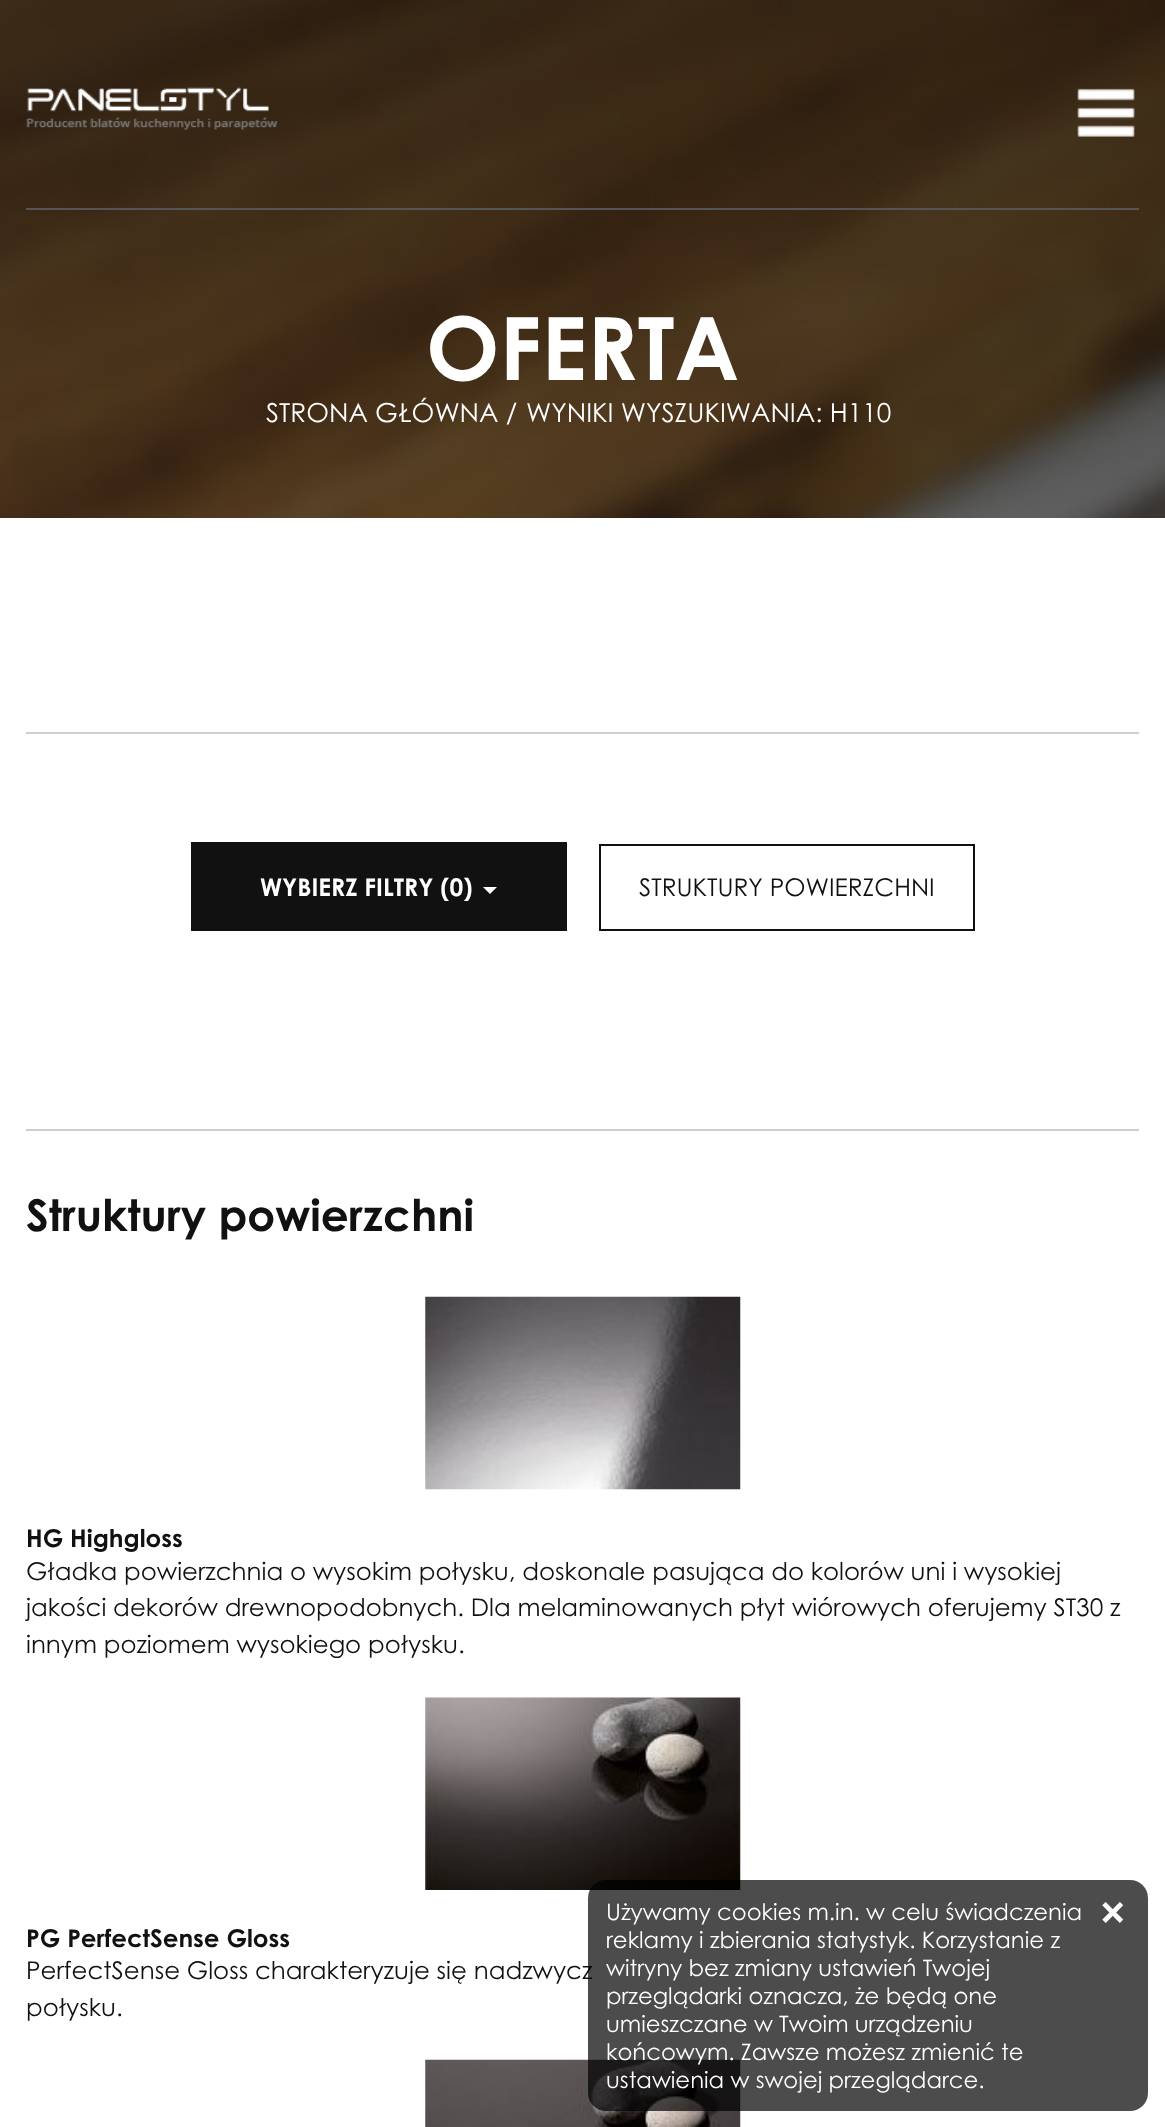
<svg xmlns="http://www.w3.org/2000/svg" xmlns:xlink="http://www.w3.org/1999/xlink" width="1165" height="2127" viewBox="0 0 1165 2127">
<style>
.cls-1{font:bold 87.5px Century Gothic;fill:#ffffff}
.cls-2{font:26.25px Century Gothic;fill:#ffffff}
.cls-3{font:bold 24.5px Century Gothic;fill:#ffffff}
.cls-4{font:24.5px Century Gothic;fill:#111111}
.cls-5{font:bold 43.75px Century Gothic;fill:#111111}
.cls-6{font:bold 24.5px Century Gothic;fill:#111111}
.cls-7{font:22.75px Century Gothic;fill:#ffffff}
.cls-8{font:bold 46px Century Gothic;fill:#ffffff}
</style>
<rect width="100%" height="100%" fill="#ffffff"/>
<image xlink:href="image0.png" x="0" y="0" width="1165" height="518"/>
<rect fill="#555555" x="26" y="208" width="1113" height="2"/>
<image xlink:href="image1.png" x="26" y="87" width="252" height="43"/>
<image xlink:href="image2.png" x="1077" y="88" width="58" height="49"/>
<rect fill="#cecece" x="26" y="732" width="1113" height="2"/>
<rect fill="#111111" x="191" y="842" width="376" height="89"/>
<path fill="#ffffff" d="M483 887H497L490 894Z"/>
<rect fill="none" stroke="#111111" stroke-width="2" x="600" y="845" width="374" height="85"/>
<rect fill="#cecece" x="26" y="1129" width="1113" height="2"/>
<image xlink:href="image3.png" x="425" y="1296" width="316" height="194"/>
<image xlink:href="image4.png" x="425" y="1697" width="316" height="193"/>
<image xlink:href="image5.png" x="425" y="2059" width="316" height="68"/>
<text class="cls-1" x="426" y="380">OFERTA</text>
<text class="cls-2" x="266" y="422">STRONA GŁÓWNA /</text>
<text class="cls-2" x="526" y="422">WYNIKI WYSZUKIWANIA: H110</text>
<text class="cls-3" x="260" y="896">WYBIERZ FILTRY (0)</text>
<text class="cls-4" x="639" y="896">STRUKTURY POWIERZCHNI</text>
<text class="cls-5" x="26" y="1231">Struktury powierzchni</text>
<text class="cls-6" x="26" y="1547">HG Highgloss</text>
<text class="cls-4"><tspan x="26" y="1580">Gładka powierzchnia o wysokim połysku, doskonale pasująca do kolorów uni i wysokiej</tspan><tspan x="26" y="1616">jakości dekorów drewnopodobnych. Dla melaminowanych płyt wiórowych oferujemy ST30 z</tspan><tspan x="26" y="1653">innym poziomem wysokiego połysku.</tspan></text>
<text class="cls-6" x="26" y="1947">PG PerfectSense Gloss</text>
<text class="cls-4"><tspan x="26" y="1979">PerfectSense Gloss charakteryzuje się nadzwycz</tspan><tspan x="26" y="2016">połysku.</tspan></text>
<rect fill="#000000" fill-opacity="0.7" x="588" y="1880" width="560" height="231" rx="18"/>
<text class="cls-7" x="606" y="1920">Używamy cookies m.in. w celu świadczenia</text>
<text class="cls-8" x="1099" y="1929">×</text>
<text class="cls-7"><tspan x="606" y="1948">reklamy i zbierania statystyk. Korzystanie z</tspan><tspan x="606" y="1976">witryny bez zmiany ustawień Twojej</tspan><tspan x="606" y="2004">przeglądarki oznacza, że będą one</tspan><tspan x="606" y="2032">umieszczane w Twoim urządzeniu</tspan><tspan x="606" y="2060">końcowym. Zawsze możesz zmienić te</tspan><tspan x="606" y="2088">ustawienia w swojej przeglądarce.</tspan></text>
</svg>
